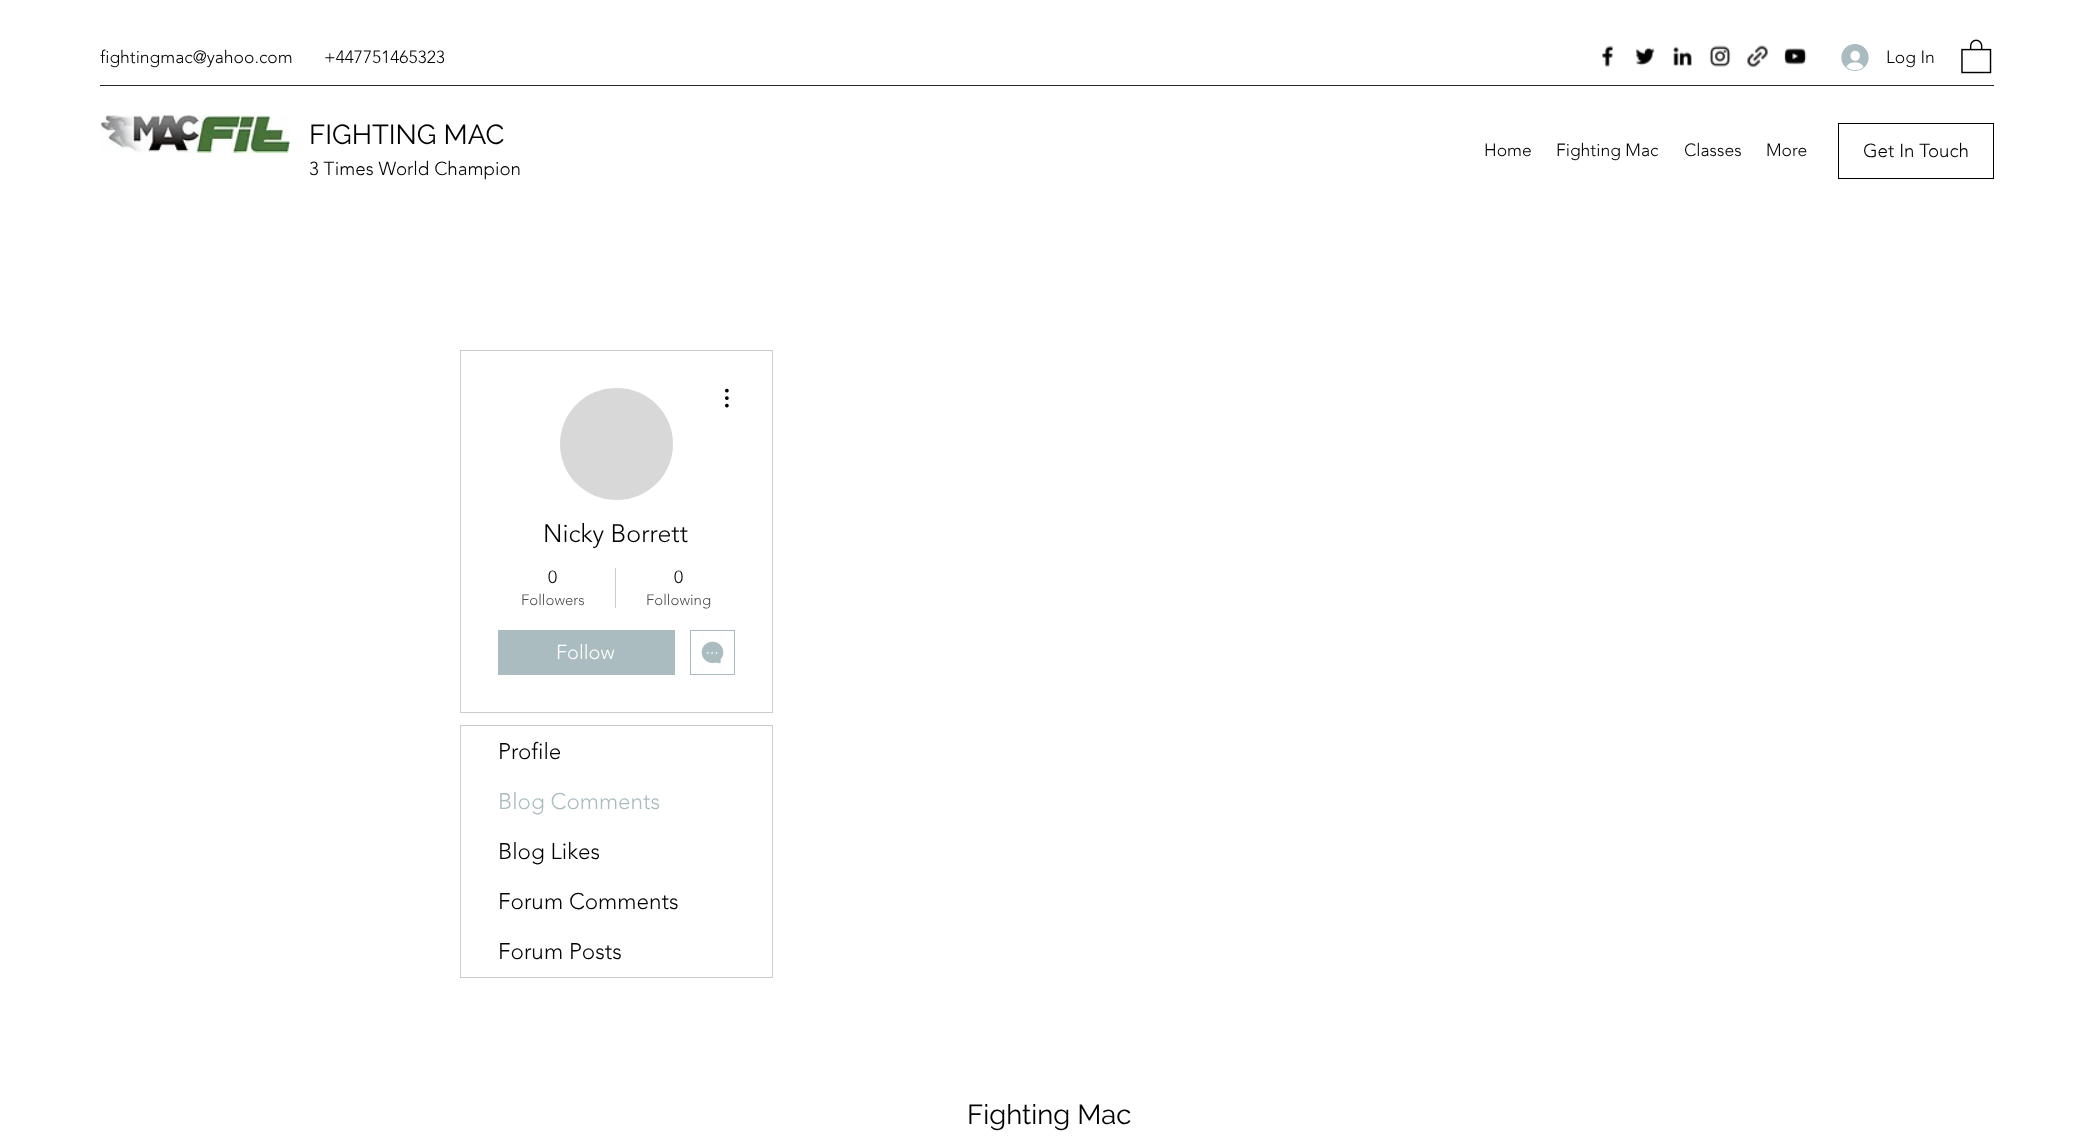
<svg xmlns="http://www.w3.org/2000/svg" xmlns:xlink="http://www.w3.org/1999/xlink" width="2093" height="1146" viewBox="0 0 2093 1146">
<style>
.cls-1{font:300 17.5px 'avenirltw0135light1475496';fill:#000000}
.cls-2{font:27.5px Raleway;fill:#000000}
.cls-3{font:300 18.75px 'avenirltw0135light1475496';fill:#000000}
.cls-4{font:300 25px 'avenirltw0135light1475496';fill:#000000}
.cls-5{font:300 15px 'avenirltw0135light1475496';fill:#4d4d4d}
.cls-6{font:300 20px 'avenirltw0135light1475496';fill:#ffffff}
.cls-7{font:300 22.5px 'avenirltw0135light1475496';fill:#000000}
.cls-8{font:300 22.5px 'avenirltw0135light1475496';fill:#aabcbf}
</style>
<rect width="100%" height="100%" fill="#ffffff"/>
<image xlink:href="image0.png" x="1602" y="45" width="12" height="22"/>
<image xlink:href="image1.png" x="1635" y="47" width="20" height="19"/>
<image xlink:href="image2.png" x="1673" y="46" width="19" height="20"/>
<image xlink:href="image3.png" x="1709" y="45" width="22" height="22"/>
<image xlink:href="image4.png" x="1747" y="45" width="22" height="23"/>
<image xlink:href="image5.png" x="1784" y="48" width="23" height="17"/>
<image xlink:href="image6.png" x="1841" y="44" width="28" height="27"/>
<image xlink:href="image7.png" x="1961" y="39" width="31" height="35"/>
<rect fill="#262626" x="100" y="85" width="1894" height="1"/>
<image xlink:href="image8.png" x="100" y="115" width="190" height="38"/>
<rect fill="none" stroke="#000000" x="1838.5" y="123.5" width="155" height="55"/>
<rect fill="none" stroke="#cccccc" x="460.5" y="350.5" width="312" height="362"/>
<rect fill="#d8d8d8" x="560" y="388" width="113" height="112" rx="56"/>
<image xlink:href="image9.png" x="725" y="388" width="4" height="20"/>
<rect fill="#cccccc" x="615" y="568" width="1" height="40"/>
<rect fill="#aabcbf" x="498" y="630" width="177" height="45"/>
<rect fill="none" stroke="#aabcbf" x="690.5" y="630.5" width="44" height="44"/>
<image xlink:href="image10.png" x="701" y="641" width="23" height="23"/>
<rect fill="none" stroke="#cccccc" x="460.5" y="725.5" width="312" height="252"/>
<text class="cls-1" x="100" y="63">fightingmac@yahoo.com</text>
<text class="cls-1" x="324" y="63">+447751465323</text>
<text class="cls-1" x="1886" y="63">Log In</text>
<text class="cls-2" x="309" y="144">FIGHTING MAC</text>
<text class="cls-3" x="309" y="175">3 Times World Champion</text>
<text class="cls-1" x="1484" y="156">Home</text>
<text class="cls-1" x="1556" y="156">Fighting Mac</text>
<text class="cls-1" x="1684" y="156">Classes</text>
<text class="cls-1" x="1766" y="156">More</text>
<text class="cls-3" x="1863" y="157">Get In Touch</text>
<text class="cls-4" x="543" y="542">Nicky Borrett</text>
<text class="cls-1" x="548" y="583">0</text>
<text class="cls-5" x="521" y="605">Followers</text>
<text class="cls-1" x="674" y="583">0</text>
<text class="cls-5" x="646" y="605">Following</text>
<text class="cls-6" x="556" y="659">Follow</text>
<text class="cls-7" x="498" y="759">Profile</text>
<text class="cls-8" x="498" y="809">Blog Comments</text>
<text class="cls-7" x="498" y="859">Blog Likes</text>
<text class="cls-7" x="498" y="909">Forum Comments</text>
<text class="cls-7" x="498" y="959">Forum Posts</text>
<text class="cls-2" x="967" y="1124">Fighting Mac</text>
</svg>
